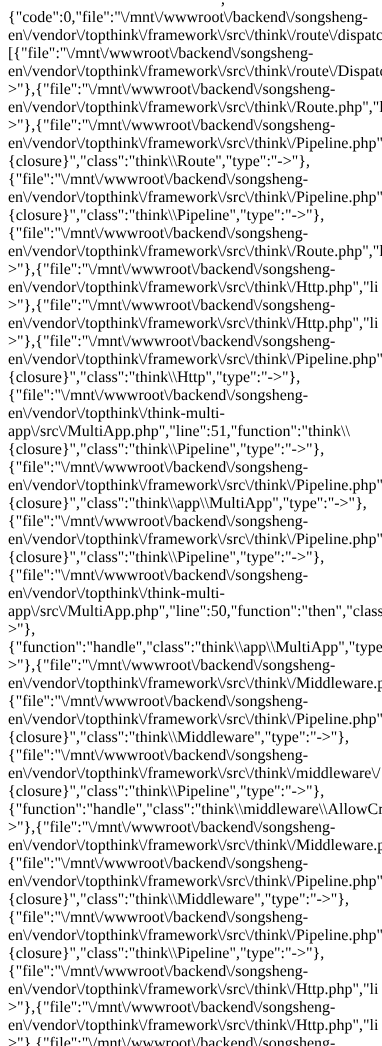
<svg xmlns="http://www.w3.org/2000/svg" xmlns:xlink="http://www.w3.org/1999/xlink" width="382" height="1046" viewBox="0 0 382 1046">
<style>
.cls-1{font:16px Liberation Serif;fill:#000000}
</style>
<rect width="100%" height="100%" fill="#ffffff"/>
<text class="cls-1" x="221" y="4">,</text>
<text class="cls-1"><tspan x="8" y="22">{"code":0,"file":"\/mnt\/wwwroot\/backend\/songsheng-</tspan><tspan x="8" y="40">en\/vendor\/topthink\/framework\/src\/think\/route\/dispatc</tspan><tspan x="8" y="58">[{"file":"\/mnt\/wwwroot\/backend\/songsheng-</tspan><tspan x="8" y="76">en\/vendor\/topthink\/framework\/src\/think\/route\/Dispatc</tspan><tspan x="8" y="94">&gt;"},{"file":"\/mnt\/wwwroot\/backend\/songsheng-</tspan><tspan x="8" y="112">en\/vendor\/topthink\/framework\/src\/think\/Route.php","l</tspan><tspan x="8" y="130">&gt;"},{"file":"\/mnt\/wwwroot\/backend\/songsheng-</tspan><tspan x="8" y="148">en\/vendor\/topthink\/framework\/src\/think\/Pipeline.php"</tspan><tspan x="8" y="166">{closure}","class":"think\\Route","type":"-&gt;"},</tspan><tspan x="8" y="184">{"file":"\/mnt\/wwwroot\/backend\/songsheng-</tspan><tspan x="8" y="202">en\/vendor\/topthink\/framework\/src\/think\/Pipeline.php"</tspan><tspan x="8" y="220">{closure}","class":"think\\Pipeline","type":"-&gt;"},</tspan><tspan x="8" y="238">{"file":"\/mnt\/wwwroot\/backend\/songsheng-</tspan><tspan x="8" y="256">en\/vendor\/topthink\/framework\/src\/think\/Route.php","l</tspan><tspan x="8" y="274">&gt;"},{"file":"\/mnt\/wwwroot\/backend\/songsheng-</tspan><tspan x="8" y="292">en\/vendor\/topthink\/framework\/src\/think\/Http.php","li</tspan><tspan x="8" y="310">&gt;"},{"file":"\/mnt\/wwwroot\/backend\/songsheng-</tspan><tspan x="8" y="328">en\/vendor\/topthink\/framework\/src\/think\/Http.php","li</tspan><tspan x="8" y="346">&gt;"},{"file":"\/mnt\/wwwroot\/backend\/songsheng-</tspan><tspan x="8" y="364">en\/vendor\/topthink\/framework\/src\/think\/Pipeline.php"</tspan><tspan x="8" y="382">{closure}","class":"think\\Http","type":"-&gt;"},</tspan><tspan x="8" y="400">{"file":"\/mnt\/wwwroot\/backend\/songsheng-</tspan><tspan x="8" y="418">en\/vendor\/topthink\/think-multi-</tspan><tspan x="8" y="436">app\/src\/MultiApp.php","line":51,"function":"think\\</tspan><tspan x="8" y="454">{closure}","class":"think\\Pipeline","type":"-&gt;"},</tspan><tspan x="8" y="472">{"file":"\/mnt\/wwwroot\/backend\/songsheng-</tspan><tspan x="8" y="490">en\/vendor\/topthink\/framework\/src\/think\/Pipeline.php"</tspan><tspan x="8" y="508">{closure}","class":"think\\app\\MultiApp","type":"-&gt;"},</tspan><tspan x="8" y="526">{"file":"\/mnt\/wwwroot\/backend\/songsheng-</tspan><tspan x="8" y="544">en\/vendor\/topthink\/framework\/src\/think\/Pipeline.php"</tspan><tspan x="8" y="562">{closure}","class":"think\\Pipeline","type":"-&gt;"},</tspan><tspan x="8" y="580">{"file":"\/mnt\/wwwroot\/backend\/songsheng-</tspan><tspan x="8" y="598">en\/vendor\/topthink\/think-multi-</tspan><tspan x="8" y="616">app\/src\/MultiApp.php","line":50,"function":"then","class</tspan><tspan x="8" y="634">&gt;"},</tspan><tspan x="8" y="652">{"function":"handle","class":"think\\app\\MultiApp","type</tspan><tspan x="8" y="670">&gt;"},{"file":"\/mnt\/wwwroot\/backend\/songsheng-</tspan><tspan x="8" y="688">en\/vendor\/topthink\/framework\/src\/think\/Middleware.p</tspan><tspan x="8" y="706">{"file":"\/mnt\/wwwroot\/backend\/songsheng-</tspan><tspan x="8" y="724">en\/vendor\/topthink\/framework\/src\/think\/Pipeline.php"</tspan><tspan x="8" y="742">{closure}","class":"think\\Middleware","type":"-&gt;"},</tspan><tspan x="8" y="760">{"file":"\/mnt\/wwwroot\/backend\/songsheng-</tspan><tspan x="8" y="778">en\/vendor\/topthink\/framework\/src\/think\/middleware\/</tspan><tspan x="8" y="796">{closure}","class":"think\\Pipeline","type":"-&gt;"},</tspan><tspan x="8" y="814">{"function":"handle","class":"think\\middleware\\AllowCr</tspan><tspan x="8" y="832">&gt;"},{"file":"\/mnt\/wwwroot\/backend\/songsheng-</tspan><tspan x="8" y="850">en\/vendor\/topthink\/framework\/src\/think\/Middleware.p</tspan><tspan x="8" y="868">{"file":"\/mnt\/wwwroot\/backend\/songsheng-</tspan><tspan x="8" y="886">en\/vendor\/topthink\/framework\/src\/think\/Pipeline.php"</tspan><tspan x="8" y="904">{closure}","class":"think\\Middleware","type":"-&gt;"},</tspan><tspan x="8" y="922">{"file":"\/mnt\/wwwroot\/backend\/songsheng-</tspan><tspan x="8" y="940">en\/vendor\/topthink\/framework\/src\/think\/Pipeline.php"</tspan><tspan x="8" y="958">{closure}","class":"think\\Pipeline","type":"-&gt;"},</tspan><tspan x="8" y="976">{"file":"\/mnt\/wwwroot\/backend\/songsheng-</tspan><tspan x="8" y="994">en\/vendor\/topthink\/framework\/src\/think\/Http.php","li</tspan><tspan x="8" y="1012">&gt;"},{"file":"\/mnt\/wwwroot\/backend\/songsheng-</tspan><tspan x="8" y="1030">en\/vendor\/topthink\/framework\/src\/think\/Http.php","li</tspan><tspan x="8" y="1048">&gt;"},{"file":"\/mnt\/wwwroot\/backend\/songsheng-</tspan></text>
</svg>
